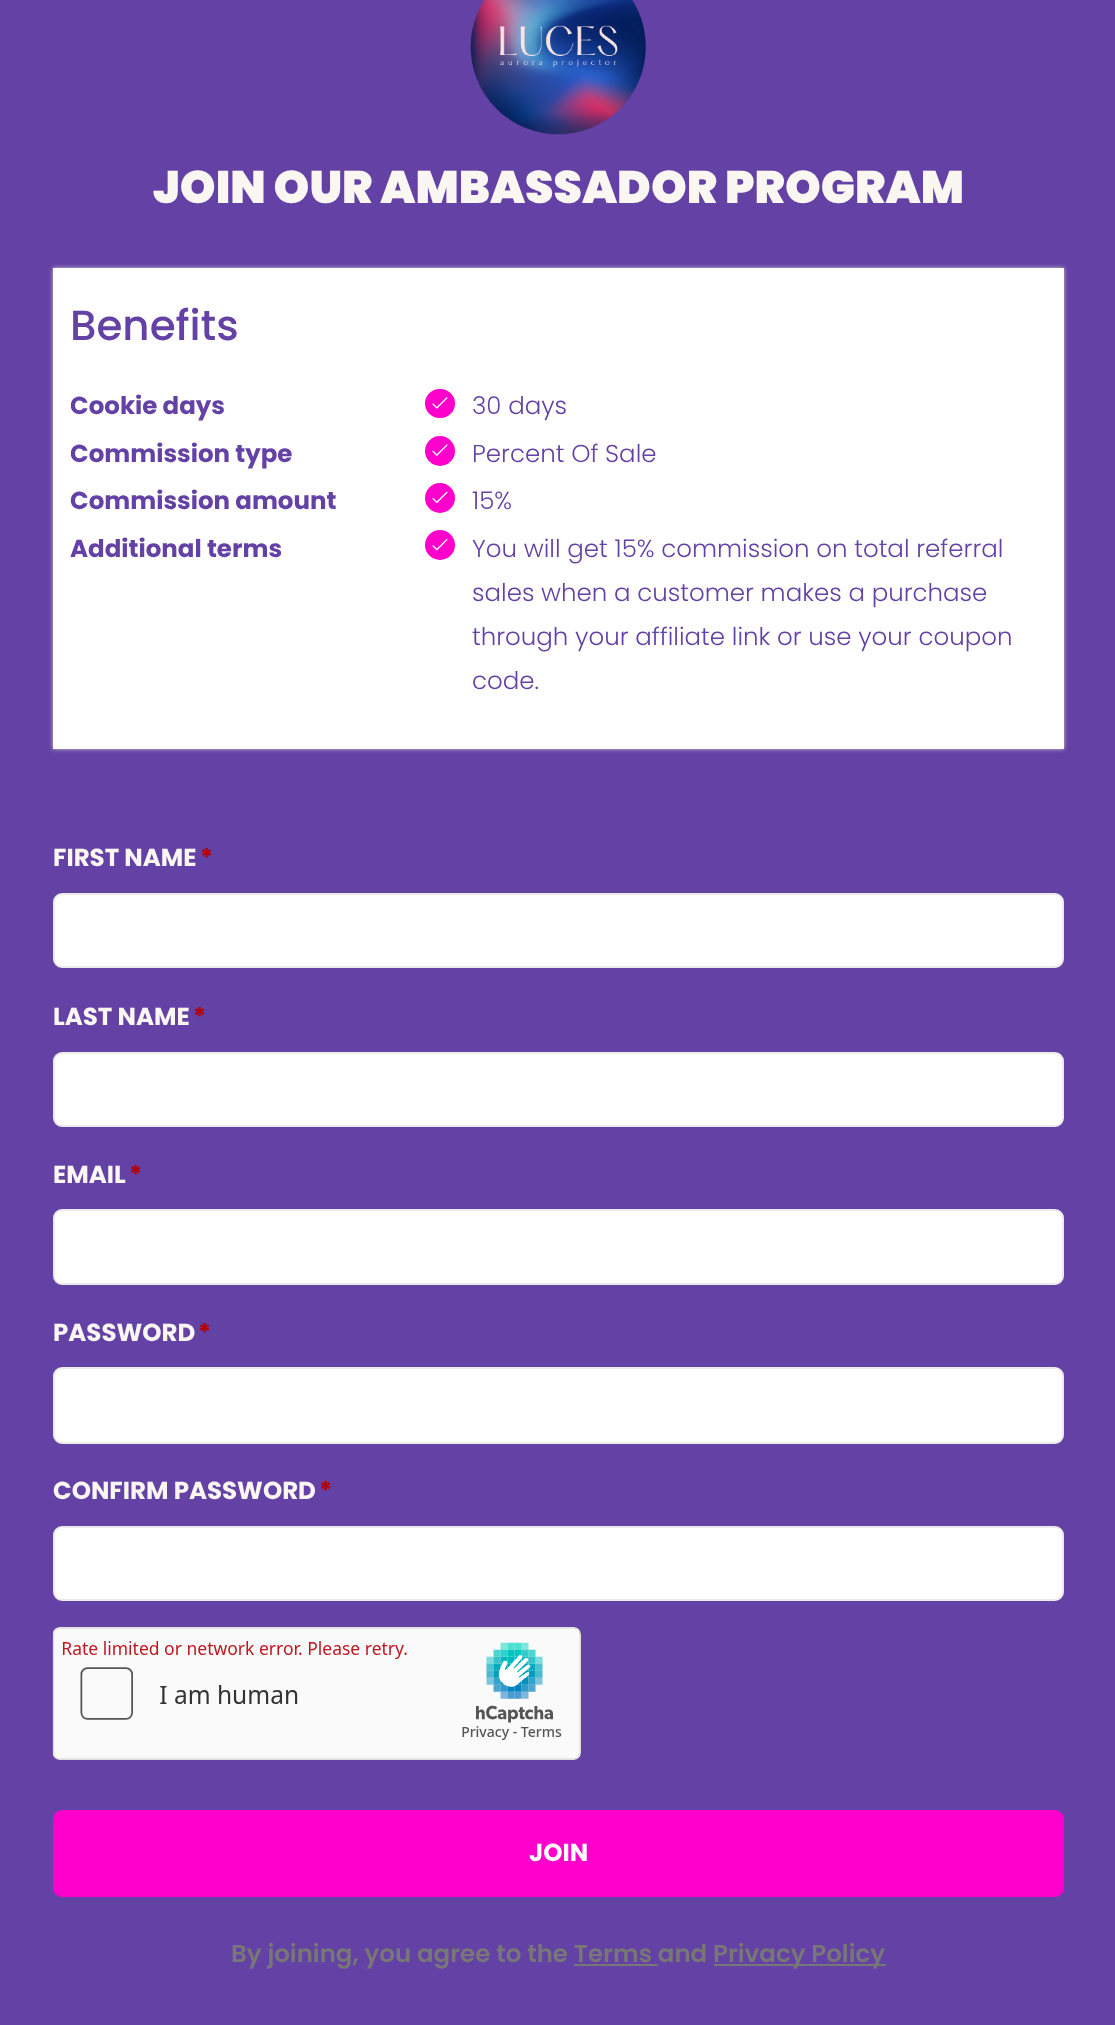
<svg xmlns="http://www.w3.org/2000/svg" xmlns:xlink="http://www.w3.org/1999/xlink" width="1115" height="2025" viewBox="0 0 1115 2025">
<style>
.cls-1{font:900 45.5px Poppins;fill:#faf7f2}
.cls-2{font:500 42px Poppins;fill:#6441a5}
.cls-3{font:bold 24.5px Poppins;fill:#6441a5}
.cls-4{font:300 24.5px Poppins;fill:#6441a5}
.cls-5{font:bold 24.5px Poppins;fill:#faf7f2}
.cls-6{font:bold 24.5px Poppins;fill:#b90000}
.cls-7{font:bold 24.5px Poppins;fill:#ffffff}
.cls-8{font:600 24.5px Poppins;fill:#777777}
</style>
<rect width="100%" height="100%" fill="#6441a5"/>
<image xlink:href="image0.png" x="470" y="0" width="176" height="135"/>
<rect fill="#cccccc" filter="blur(2px)" x="53" y="268" width="1011" height="481"/>
<rect fill="#ffffff" x="53" y="268" width="1011" height="481"/>
<rect fill="#ff00cc" x="425" y="389" width="30" height="29" rx="14.5"/>
<image xlink:href="image1.png" x="432" y="397" width="16" height="12"/>
<circle fill="#ff00cc" cx="440" cy="451" r="15"/>
<image xlink:href="image2.png" x="432" y="444" width="16" height="12"/>
<circle fill="#ff00cc" cx="440" cy="498" r="15"/>
<image xlink:href="image3.png" x="432" y="491" width="16" height="13"/>
<circle fill="#ff00cc" cx="440" cy="545" r="15"/>
<image xlink:href="image4.png" x="432" y="539" width="16" height="12"/>
<rect fill="#ffffff" stroke="#ebebeb" stroke-width="2" x="54" y="894" width="1009" height="73" rx="8"/>
<rect fill="#ffffff" stroke="#ebebeb" stroke-width="2" x="54" y="1053" width="1009" height="73" rx="8"/>
<rect fill="#ffffff" stroke="#ebebeb" stroke-width="2" x="54" y="1210" width="1009" height="74" rx="8"/>
<rect fill="#ffffff" stroke="#ebebeb" stroke-width="2" x="54" y="1368" width="1009" height="75" rx="8"/>
<rect fill="#ffffff" stroke="#ebebeb" stroke-width="2" x="54" y="1527" width="1009" height="73" rx="8"/>
<image xlink:href="image5.png" x="52" y="1627" width="529" height="133"/>
<rect fill="#ff00cc" x="53" y="1810" width="1011" height="87" rx="9"/>
<rect fill="#777777" x="714" y="1964" width="172" height="2"/>
<rect fill="#777777" x="574" y="1964" width="84" height="2"/>
<text class="cls-1" x="153" y="203">JOIN OUR AMBASSADOR PROGRAM</text>
<text class="cls-2" x="70" y="340">Benefits</text>
<text class="cls-3" x="70" y="414">Cookie days</text>
<text class="cls-4" x="472" y="414">30 days</text>
<text class="cls-3" x="70" y="462">Commission type</text>
<text class="cls-4" x="472" y="462">Percent Of Sale</text>
<text class="cls-3" x="70" y="509">Commission amount</text>
<text class="cls-4" x="472" y="509">15%</text>
<text class="cls-3" x="70" y="557">Additional terms</text>
<text class="cls-4"><tspan x="472" y="557">You will get 15% commission on total referral</tspan><tspan x="472" y="601">sales when a customer makes a purchase</tspan><tspan x="472" y="645">through your affiliate link or use your coupon</tspan><tspan x="472" y="689">code.</tspan></text>
<text class="cls-5" x="53" y="866">FIRST NAME</text>
<text class="cls-6" x="200" y="866">*</text>
<text class="cls-5" x="53" y="1025">LAST NAME</text>
<text class="cls-6" x="193" y="1025">*</text>
<text class="cls-5" x="53" y="1183">EMAIL</text>
<text class="cls-6" x="129" y="1183">*</text>
<text class="cls-5" x="53" y="1341">PASSWORD</text>
<text class="cls-6" x="198" y="1341">*</text>
<text class="cls-5" x="53" y="1499">CONFIRM PASSWORD</text>
<text class="cls-6" x="319" y="1499">*</text>
<text class="cls-7" x="529" y="1861">JOIN</text>
<text class="cls-8" x="231" y="1962">By joining, you agree to the Terms and</text>
<text class="cls-8" x="713" y="1962">Privacy Policy</text>
</svg>
